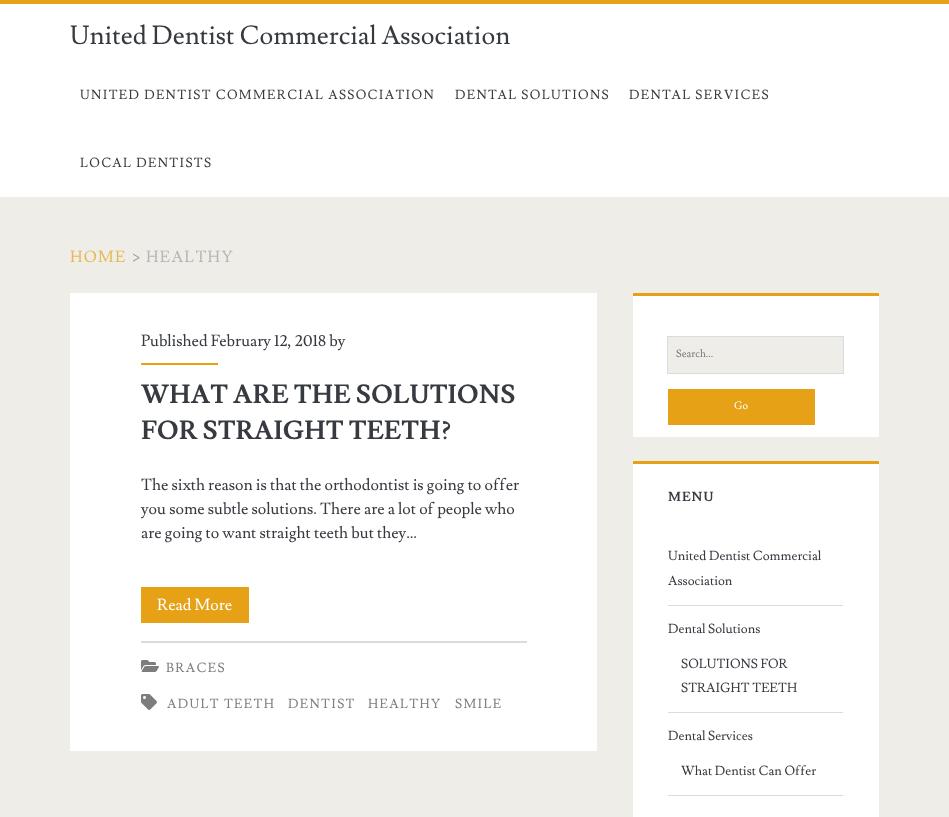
<svg xmlns="http://www.w3.org/2000/svg" xmlns:xlink="http://www.w3.org/1999/xlink" width="949" height="817" viewBox="0 0 949 817">
<style>
.cls-1{font:26px Lusitana;fill:#373b41}
.cls-2{font:13px Lusitana;letter-spacing:1.3px;fill:#373b41}
.cls-3{font:16px Lusitana;letter-spacing:1.25px;fill:#e8b856}
.cls-4{font:16px Lusitana;letter-spacing:1.25px;fill:#9e9f9f}
.cls-5{font:16px Lusitana;letter-spacing:1.25px;fill:#b6b6b5}
.cls-6{font:16px Lusitana;fill:#373b41}
.cls-7{font:bold 26px Lusitana;fill:#373b41}
.cls-8{font:16px Lusitana;fill:#ffffff}
.cls-9{font:13px Lusitana;letter-spacing:1.3px;fill:#7c7d7f}
.cls-10{font:10.5px Lusitana;fill:#7c7d7f}
.cls-11{font:10.5px Lusitana;fill:#ffffff}
.cls-12{font:bold 13px Lusitana;letter-spacing:1px;fill:#373b41}
.cls-13{font:13px Lusitana;fill:#373b41}
</style>
<rect width="100%" height="100%" fill="#eeede8"/>
<rect fill="#ffffff" x="0" y="4" width="949" height="193"/>
<rect fill="#e6a117" x="0" y="0" width="949" height="4"/>
<rect fill="#ffffff" x="70" y="293" width="527" height="458"/>
<rect fill="#e6a117" x="141" y="363" width="77" height="2"/>
<rect fill="#d9dcdf" x="141" y="641" width="386" height="2"/>
<rect fill="#e6a117" x="141" y="587" width="108" height="36"/>
<image xlink:href="image0.png" x="141" y="660" width="18" height="12"/>
<image xlink:href="image1.png" x="141" y="694" width="16" height="16"/>
<rect fill="#ffffff" x="633" y="296" width="246" height="141"/>
<rect fill="#e6a117" x="633" y="293" width="246" height="3"/>
<rect fill="#eeede8" x="668" y="337" width="175" height="36"/>
<rect fill="none" stroke="#d9dcdf" x="667.5" y="336.5" width="176" height="37"/>
<rect fill="#e6a117" x="668" y="389" width="147" height="36"/>
<rect fill="#ffffff" x="633" y="464" width="246" height="353"/>
<rect fill="#e6a117" x="633" y="461" width="246" height="3"/>
<rect fill="#d9dcdf" x="668" y="605" width="175" height="1"/>
<rect fill="#d9dcdf" x="668" y="712" width="175" height="1"/>
<rect fill="#d9dcdf" x="668" y="795" width="175" height="1"/>
<text class="cls-1" x="70" y="44">United Dentist Commercial Association</text>
<text class="cls-2" x="80" y="99">UNITED DENTIST COMMERCIAL ASSOCIATION</text>
<text class="cls-2" x="455" y="99">DENTAL SOLUTIONS</text>
<text class="cls-2" x="629" y="99">DENTAL SERVICES</text>
<text class="cls-2" x="80" y="167">LOCAL DENTISTS</text>
<text class="cls-3" x="70" y="262">HOME</text>
<text class="cls-4" x="132" y="262">&gt;</text>
<text class="cls-5" x="146" y="262">HEALTHY</text>
<text class="cls-6" x="141" y="346">Published February 12, 2018 by</text>
<text class="cls-7"><tspan x="141" y="403">WHAT ARE THE SOLUTIONS</tspan><tspan x="141" y="439">FOR STRAIGHT TEETH?</tspan></text>
<text class="cls-6"><tspan x="141" y="490">The sixth reason is that the orthodontist is going to offer</tspan><tspan x="141" y="514">you some subtle solutions. There are a lot of people who</tspan><tspan x="141" y="538">are going to want straight teeth but they…</tspan></text>
<text class="cls-8" x="157" y="610">Read More</text>
<text class="cls-9" x="166" y="672">BRACES</text>
<text class="cls-9" x="167" y="708">ADULT TEETH</text>
<text class="cls-9" x="288" y="708">DENTIST</text>
<text class="cls-9" x="368" y="708">HEALTHY</text>
<text class="cls-9" x="455" y="708">SMILE</text>
<text class="cls-10" x="676" y="357">Search...</text>
<text class="cls-11" x="734" y="409">Go</text>
<text class="cls-12" x="668" y="501">MENU</text>
<text class="cls-13"><tspan x="668" y="560">United Dentist Commercial</tspan><tspan x="668" y="585">Association</tspan></text>
<text class="cls-13" x="668" y="633">Dental Solutions</text>
<text class="cls-13"><tspan x="681" y="668">SOLUTIONS FOR</tspan><tspan x="681" y="692">STRAIGHT TEETH</tspan></text>
<text class="cls-13" x="668" y="740">Dental Services</text>
<text class="cls-13" x="681" y="775">What Dentist Can Offer</text>
</svg>
